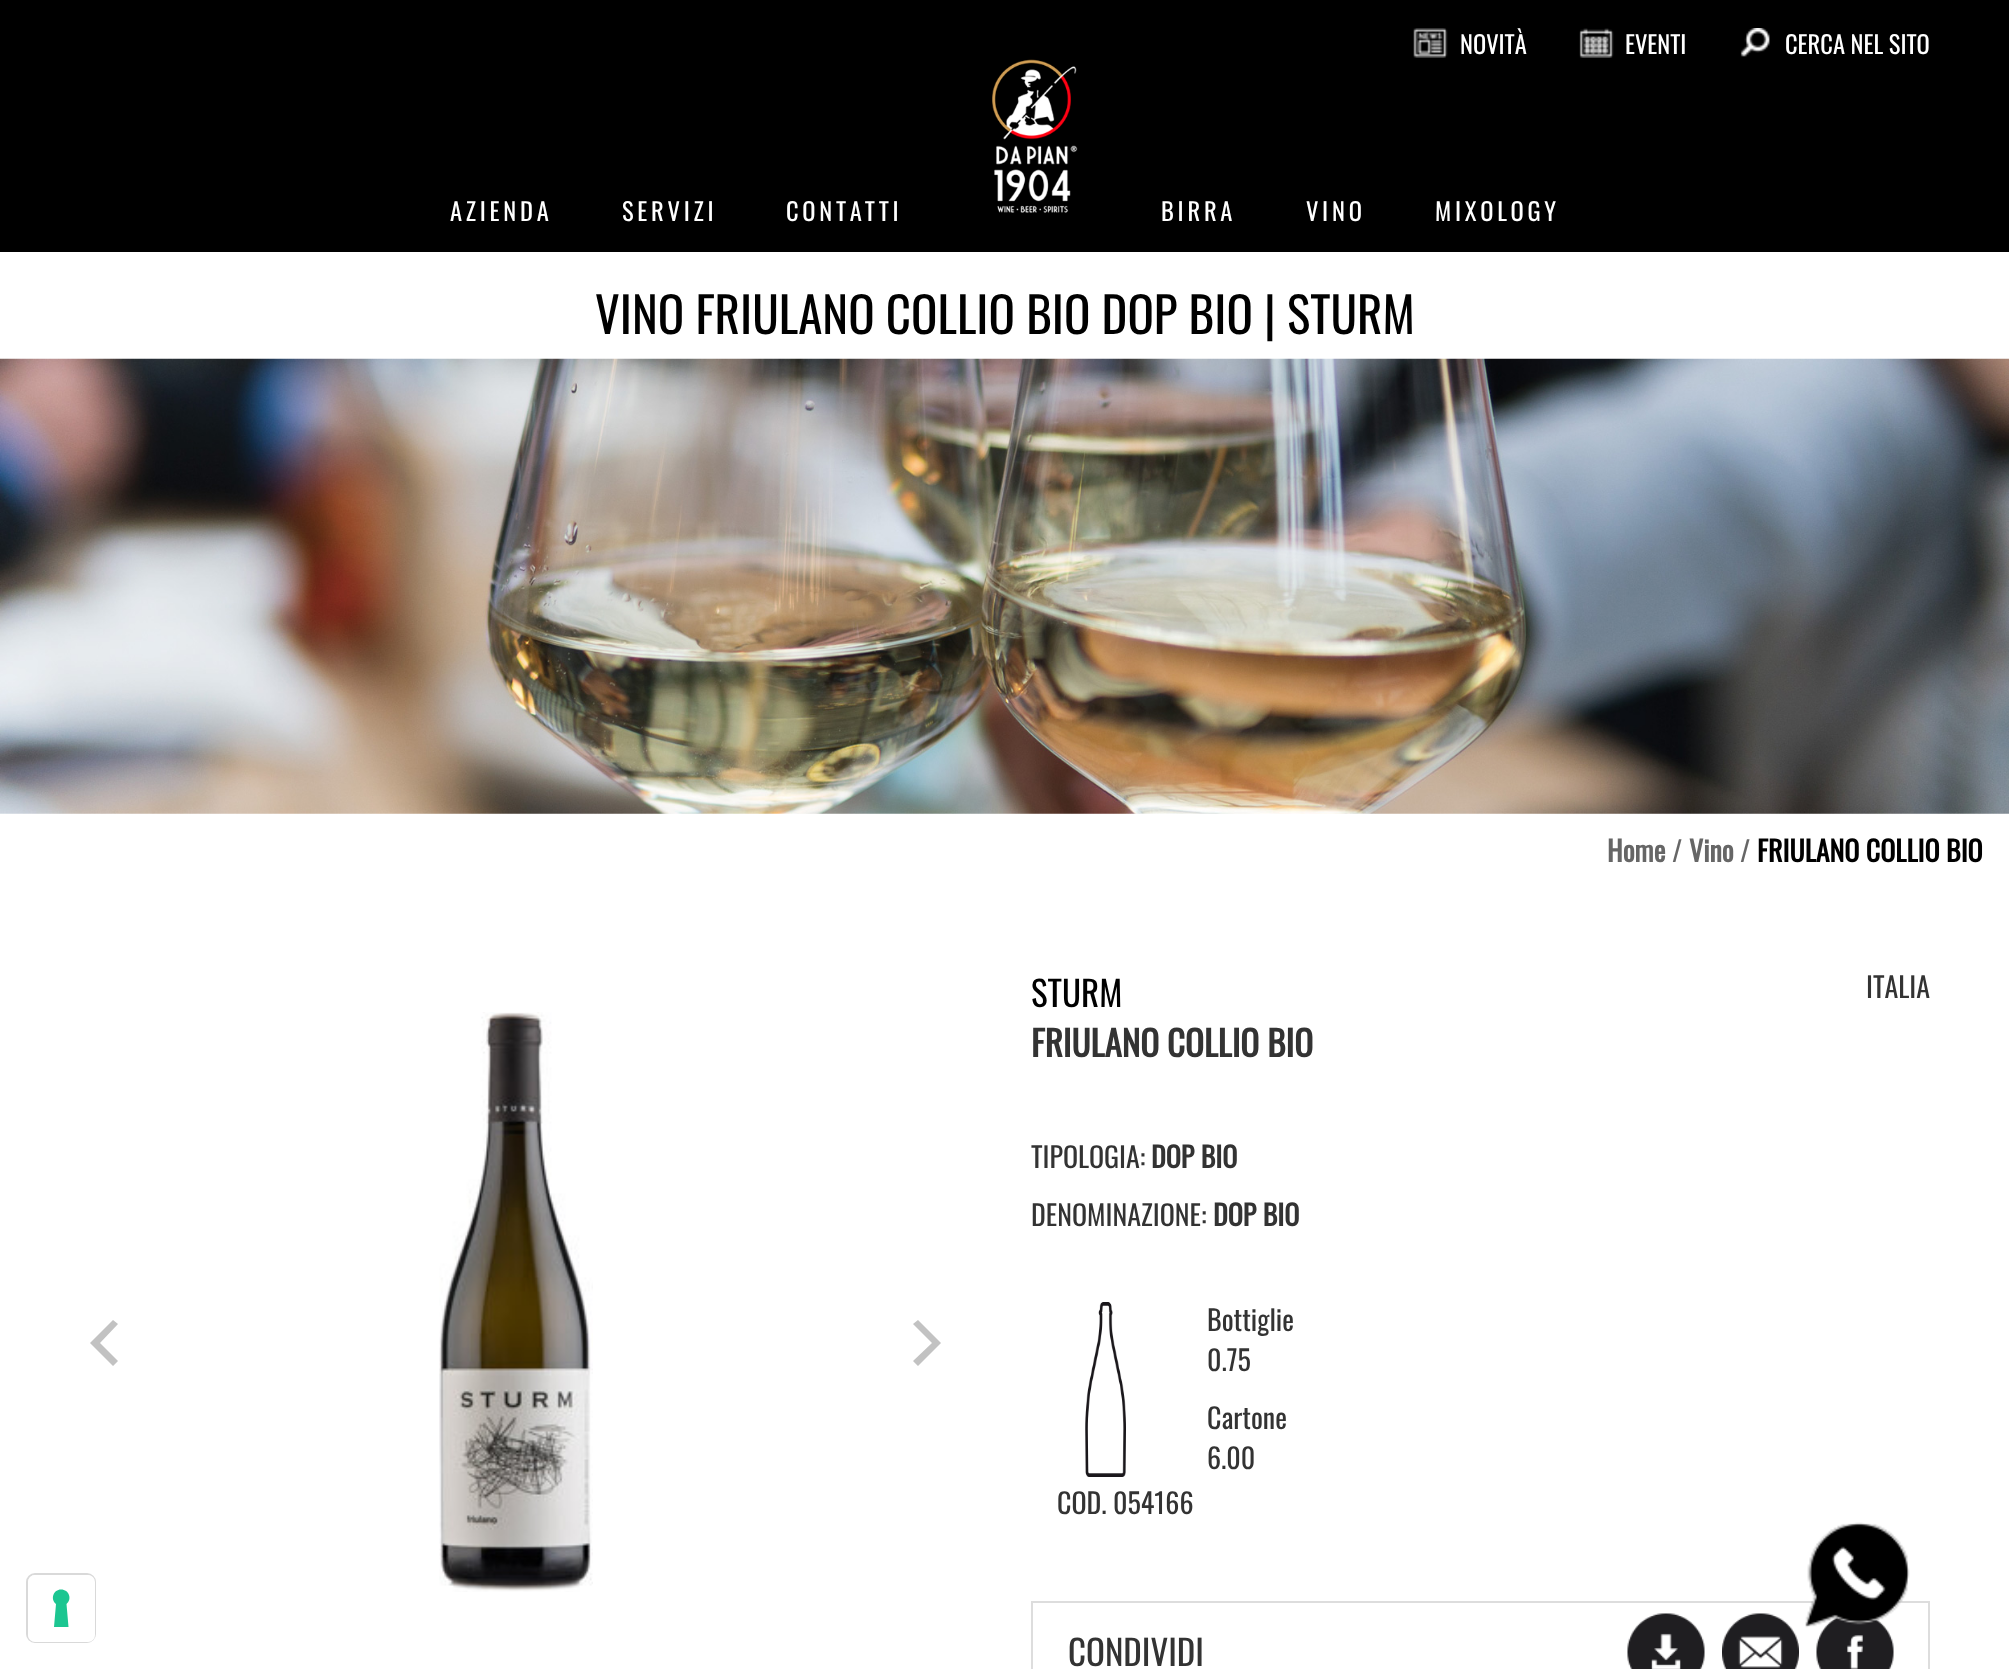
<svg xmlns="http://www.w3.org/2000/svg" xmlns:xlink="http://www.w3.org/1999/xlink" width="2009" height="1669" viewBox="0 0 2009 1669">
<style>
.cls-1{font:24.5px Oswald;fill:#ffffff}
.cls-2{font:24.5px Oswald;letter-spacing:3.75px;fill:#ffffff}
.cls-3{font:49px Oswald;fill:#000000}
.cls-4{font:bold 28px Oswald;fill:#666666}
.cls-5{font:28px Oswald;fill:#666666}
.cls-6{font:bold 28px Oswald;fill:#000000}
.cls-7{font:35px Oswald;fill:#000000}
.cls-8{font:28px Oswald;fill:#333333}
.cls-9{font:bold 35px Oswald;fill:#333333}
.cls-10{font:bold 28px Oswald;fill:#333333}
.cls-11{font:35px Oswald;fill:#333333}
</style>
<rect width="100%" height="100%" fill="#ffffff"/>
<rect fill="#000000" x="0" y="0" width="2009" height="252"/>
<image xlink:href="image0.png" x="1413" y="28" width="35" height="30"/>
<image xlink:href="image1.png" x="1579" y="28" width="35" height="30"/>
<image xlink:href="image2.png" x="1740" y="28" width="30" height="29"/>
<image xlink:href="image3.png" x="992" y="59" width="86" height="154"/>
<image xlink:href="image4.png" x="0" y="358" width="2009" height="456"/>
<path fill="#c2c2c2" d="M90 1343L113 1366L118 1361L100 1343L118 1324L113 1320Z"/>
<image xlink:href="image5.png" x="439" y="1012" width="154" height="580"/>
<path fill="#c2c2c2" d="M941 1343L918 1320L913 1324L932 1343L913 1361L918 1366Z"/>
<image xlink:href="image6.png" x="1085" y="1302" width="41" height="175"/>
<rect fill="none" stroke="#dddddd" stroke-width="2" x="1032" y="1602" width="897" height="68"/>
<image xlink:href="image7.png" x="1627" y="1613" width="78" height="56"/>
<image xlink:href="image8.png" x="1722" y="1613" width="77" height="56"/>
<image xlink:href="image9.png" x="1816" y="1616" width="78" height="53"/>
<rect fill="none" stroke="#d9d9d9" stroke-width="2" x="27" y="1574" width="68" height="68" rx="8"/>
<rect fill="#ffffff" x="28" y="1575" width="67" height="67" rx="7"/>
<path fill="#1cc691" fill-rule="evenodd" d="M61 1589.5C69 1589.5 72.5 1599 66.5 1604L68.5 1627H54L56 1604C50 1599 53.5 1589.5 61 1589.5Z"/>
<image xlink:href="image10.png" x="1805" y="1522" width="105" height="106"/>
<text class="cls-1" x="1460" y="54">NOVITÀ</text>
<text class="cls-1" x="1625" y="54">EVENTI</text>
<text class="cls-1" x="1785" y="54">CERCA NEL SITO</text>
<text class="cls-2" x="450" y="221">AZIENDA</text>
<text class="cls-2" x="622" y="221">SERVIZI</text>
<text class="cls-2" x="786" y="221">CONTATTI</text>
<text class="cls-2" x="1161" y="221">BIRRA</text>
<text class="cls-2" x="1306" y="221">VINO</text>
<text class="cls-2" x="1435" y="221">MIXOLOGY</text>
<text class="cls-3" x="595" y="334">VINO FRIULANO COLLIO BIO DOP BIO | STURM</text>
<text class="cls-4" x="1607" y="862">Home</text>
<text class="cls-5" x="1672" y="862">/</text>
<text class="cls-4" x="1689" y="862">Vino</text>
<text class="cls-5" x="1740" y="862">/</text>
<text class="cls-6" x="1757" y="862">FRIULANO COLLIO BIO</text>
<text class="cls-7" x="1031" y="1007">STURM</text>
<text class="cls-8" x="1866" y="998">ITALIA</text>
<text class="cls-9" x="1031" y="1057">FRIULANO COLLIO BIO</text>
<text class="cls-8" x="1031" y="1168">TIPOLOGIA:</text>
<text class="cls-10" x="1151" y="1168">DOP BIO</text>
<text class="cls-8" x="1031" y="1226">DENOMINAZIONE:</text>
<text class="cls-10" x="1213" y="1226">DOP BIO</text>
<text class="cls-8"><tspan x="1207" y="1331">Bottiglie</tspan><tspan x="1207" y="1371">0.75</tspan></text>
<text class="cls-8"><tspan x="1207" y="1429">Cartone</tspan><tspan x="1207" y="1469">6.00</tspan></text>
<text class="cls-8" x="1057" y="1514">COD. 054166</text>
<text class="cls-11" x="1068" y="1666">CONDIVIDI</text>
</svg>
